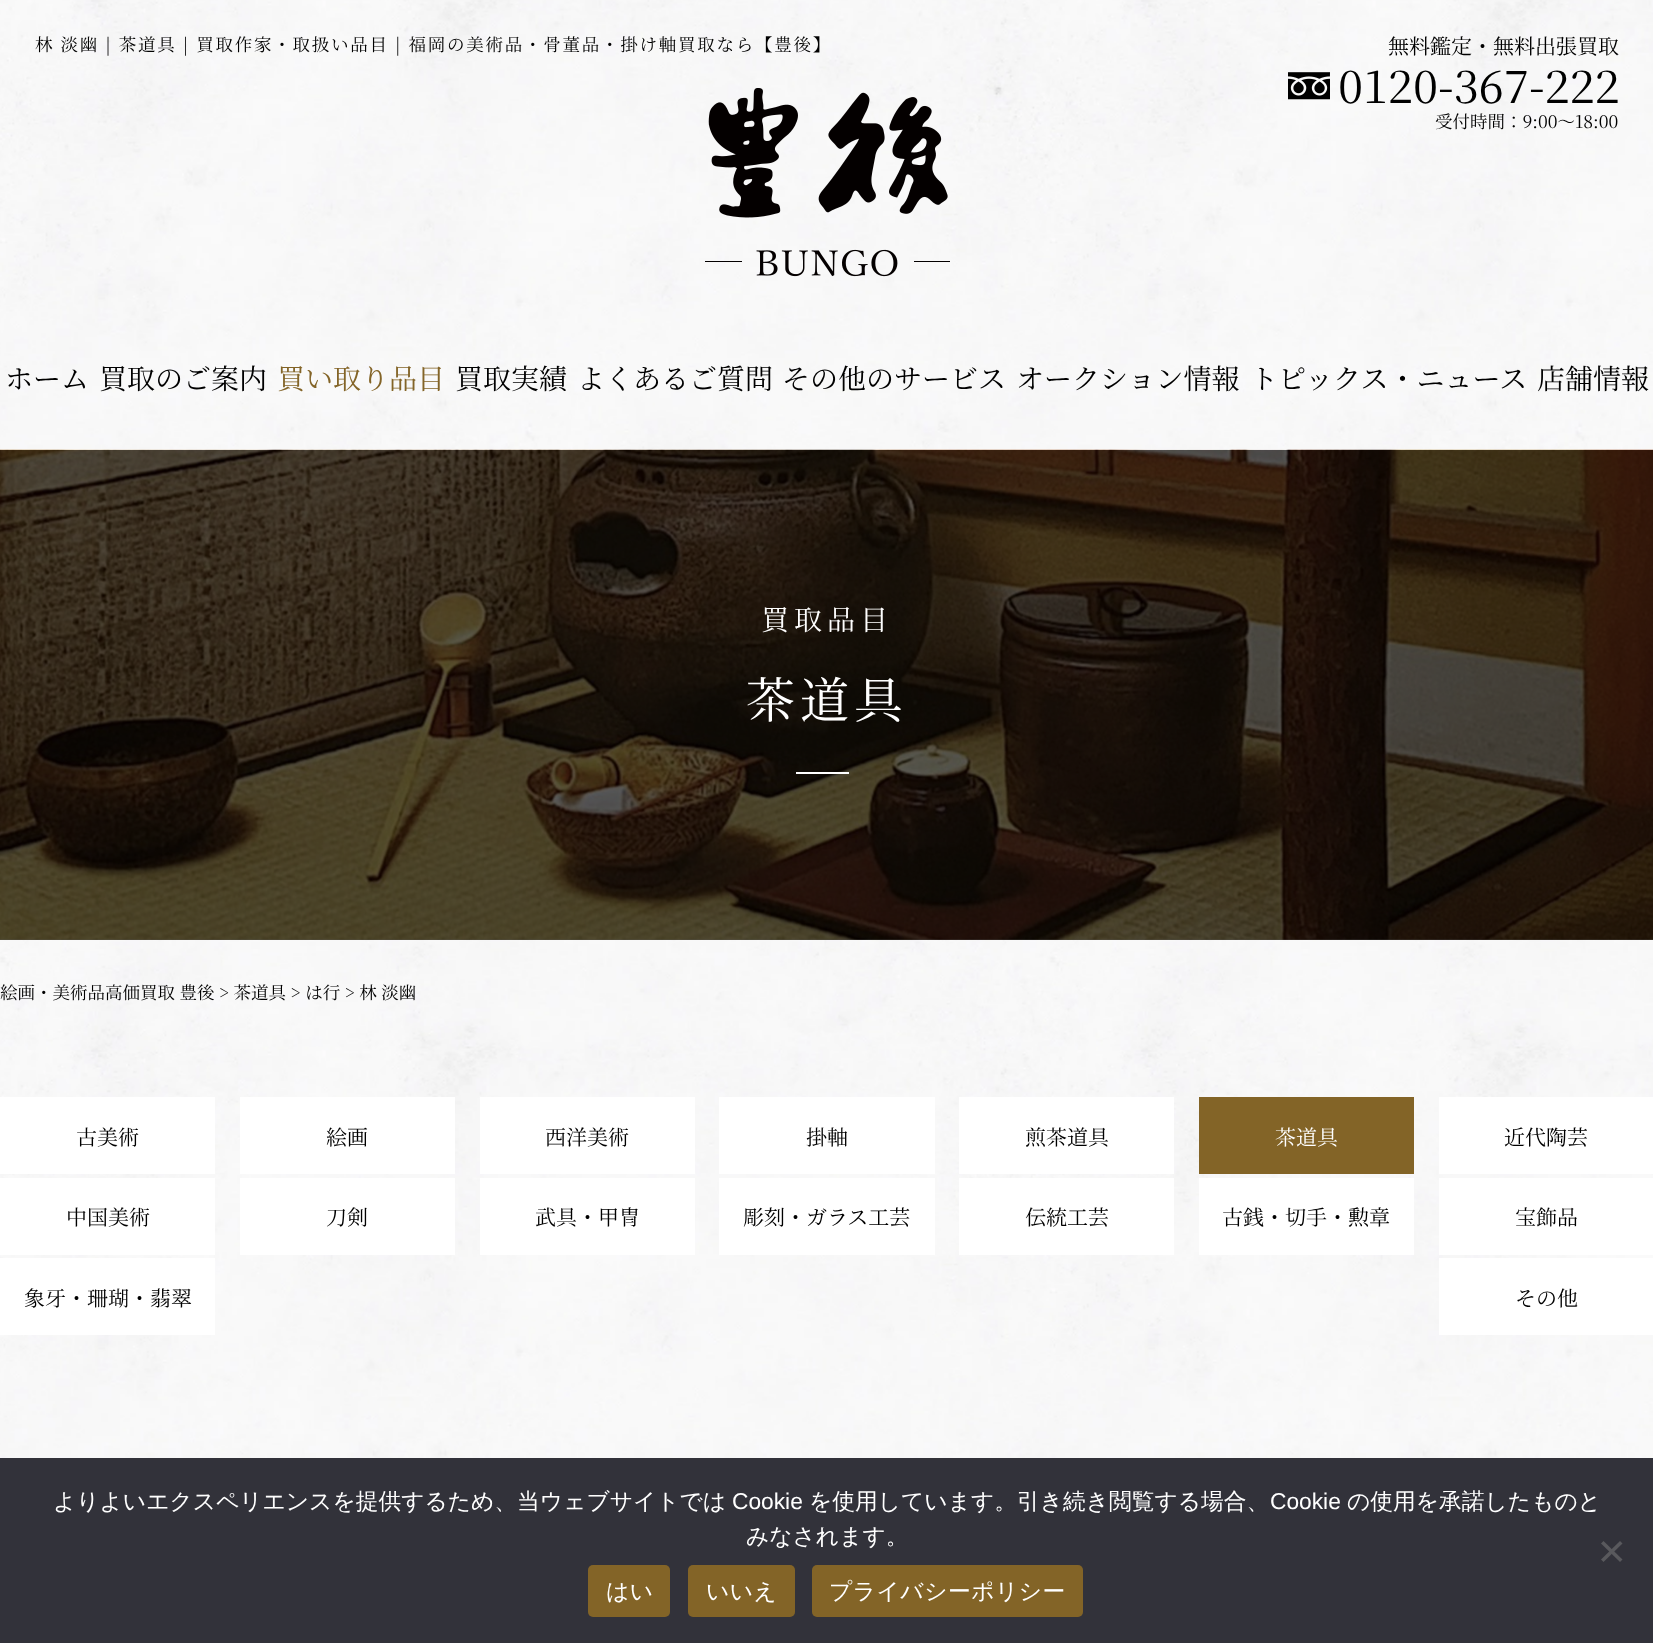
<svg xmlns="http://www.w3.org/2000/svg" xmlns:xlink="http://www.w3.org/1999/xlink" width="1653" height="1643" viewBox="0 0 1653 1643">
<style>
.cls-1{font:17.5px Noto Serif JP;letter-spacing:1.75px;fill:#000000}
.cls-2{font:21px Noto Serif JP;fill:#000000}
.cls-3{font:45.5px Noto Serif JP;fill:#000000}
.cls-4{font:17.5px Noto Serif JP;fill:#000000}
.cls-5{font:28px Noto Serif JP;fill:#000000}
.cls-6{font:28px Noto Serif JP;fill:#836427}
.cls-7{font:28px Noto Serif JP;letter-spacing:5px;fill:#ffffff}
.cls-8{font:49px Noto Serif JP;letter-spacing:5px;fill:#ffffff}
.cls-9{font:21px Noto Serif JP;fill:#ffffff}
.cls-10{font:500 22.75px WenQuanYi Zen Hei;fill:#ffffff}
.cls-11{font:22.75px Liberation Sans;fill:#ffffff}
.cls-12{font:500 22.75px WenQuanYi Zen Hei;letter-spacing:0.5px;fill:#ffffff}
</style>
<rect width="100%" height="100%" fill="#ffffff"/>
<image xlink:href="image0.png" x="0" y="0" width="1653" height="1458"/>
<image xlink:href="image1.png" x="705" y="88" width="245" height="189"/>
<image xlink:href="image2.png" x="1288" y="72" width="42" height="28"/>
<image xlink:href="image3.png" x="0" y="449" width="1653" height="491"/>
<rect fill="#000000" fill-opacity="0.65" x="0" y="450" width="1653" height="490"/>
<rect fill="#ffffff" x="796" y="772" width="53" height="2"/>
<rect fill="#ffffff" x="0" y="1097" width="215" height="77"/>
<rect fill="#ffffff" x="240" y="1097" width="215" height="77"/>
<rect fill="#ffffff" x="480" y="1097" width="215" height="77"/>
<rect fill="#ffffff" x="719" y="1097" width="216" height="77"/>
<rect fill="#ffffff" x="959" y="1097" width="215" height="77"/>
<rect fill="#836427" x="1199" y="1097" width="215" height="77"/>
<rect fill="#ffffff" x="1439" y="1097" width="214" height="77"/>
<rect fill="#ffffff" x="0" y="1178" width="215" height="77"/>
<rect fill="#ffffff" x="240" y="1178" width="215" height="77"/>
<rect fill="#ffffff" x="480" y="1178" width="215" height="77"/>
<rect fill="#ffffff" x="719" y="1178" width="216" height="77"/>
<rect fill="#ffffff" x="959" y="1178" width="215" height="77"/>
<rect fill="#ffffff" x="1199" y="1178" width="215" height="77"/>
<rect fill="#ffffff" x="1439" y="1178" width="214" height="77"/>
<rect fill="#ffffff" x="0" y="1258" width="215" height="77"/>
<rect fill="#ffffff" x="1439" y="1258" width="214" height="77"/>
<rect fill="#32323a" x="0" y="1458" width="1653" height="185"/>
<path fill="#59595d" d="M1620 1541L1622.5 1543.5L1603.5 1562L1601 1559.5Z"/>
<path fill="#59595d" d="M1601 1543.5L1603.5 1541L1622.5 1559.5L1620 1562Z"/>
<rect fill="#836427" x="588" y="1565" width="82" height="52" rx="5"/>
<rect fill="#836427" x="688" y="1565" width="107" height="52" rx="5"/>
<rect fill="#836427" x="812" y="1565" width="271" height="52" rx="5"/>
<text class="cls-1" x="35" y="51">林 淡幽 | 茶道具 | 買取作家・取扱い品目 | 福岡の美術品・骨董品・掛け軸買取なら【豊後】</text>
<text class="cls-2" x="1388" y="54">無料鑑定・無料出張買取</text>
<text class="cls-3" x="1338" y="103">0120-367-222</text>
<text class="cls-4" x="1435" y="128">受付時間：9:00〜18:00</text>
<text class="cls-5" x="5" y="389">ホーム</text>
<text class="cls-5" x="99" y="389">買取のご案内</text>
<text class="cls-6" x="277" y="389">買い取り品目</text>
<text class="cls-5" x="455" y="389">買取実績</text>
<text class="cls-5" x="577" y="389">よくあるご質問</text>
<text class="cls-5" x="782" y="389">その他のサービス</text>
<text class="cls-5" x="1016" y="389">オークション情報</text>
<text class="cls-5" x="1250" y="389">トピックス・ニュース</text>
<text class="cls-5" x="1537" y="389">店舗情報</text>
<text class="cls-7" x="761" y="630">買取品目</text>
<text class="cls-8" x="746" y="718">茶道具</text>
<text class="cls-4" x="0" y="999">絵画・美術品高価買取 豊後 &gt; 茶道具 &gt; は行 &gt; 林 淡幽</text>
<text class="cls-2" x="76" y="1145">古美術</text>
<text class="cls-2" x="326" y="1145">絵画</text>
<text class="cls-2" x="545" y="1145">西洋美術</text>
<text class="cls-2" x="806" y="1145">掛軸</text>
<text class="cls-2" x="1025" y="1145">煎茶道具</text>
<text class="cls-9" x="1275" y="1145">茶道具</text>
<text class="cls-2" x="1504" y="1145">近代陶芸</text>
<text class="cls-2" x="66" y="1225">中国美術</text>
<text class="cls-2" x="326" y="1225">刀剣</text>
<text class="cls-2" x="535" y="1225">武具・甲冑</text>
<text class="cls-2" x="743" y="1225">彫刻・ガラス工芸</text>
<text class="cls-2" x="1025" y="1225">伝統工芸</text>
<text class="cls-2" x="1222" y="1225">古銭・切手・勲章</text>
<text class="cls-2" x="1515" y="1225">宝飾品</text>
<text class="cls-2" x="24" y="1306">象牙・珊瑚・翡翠</text>
<text class="cls-2" x="1515" y="1306">その他</text>
<text class="cls-10" x="53" y="1509">よりよいエクスペリエンスを提供するため、当ウェブサイトでは</text>
<text class="cls-11" x="732" y="1509">Cookie</text>
<text class="cls-10" x="809" y="1509">を使用しています。引き続き閲覧する場合、</text>
<text class="cls-11" x="1270" y="1509">Cookie</text>
<text class="cls-10" x="1347" y="1509">の使用を承諾したものと</text>
<text class="cls-10" x="746" y="1544">みなされます。</text>
<text class="cls-12" x="606" y="1599">はい</text>
<text class="cls-12" x="706" y="1599">いいえ</text>
<text class="cls-12" x="829" y="1599">プライバシーポリシー</text>
</svg>
